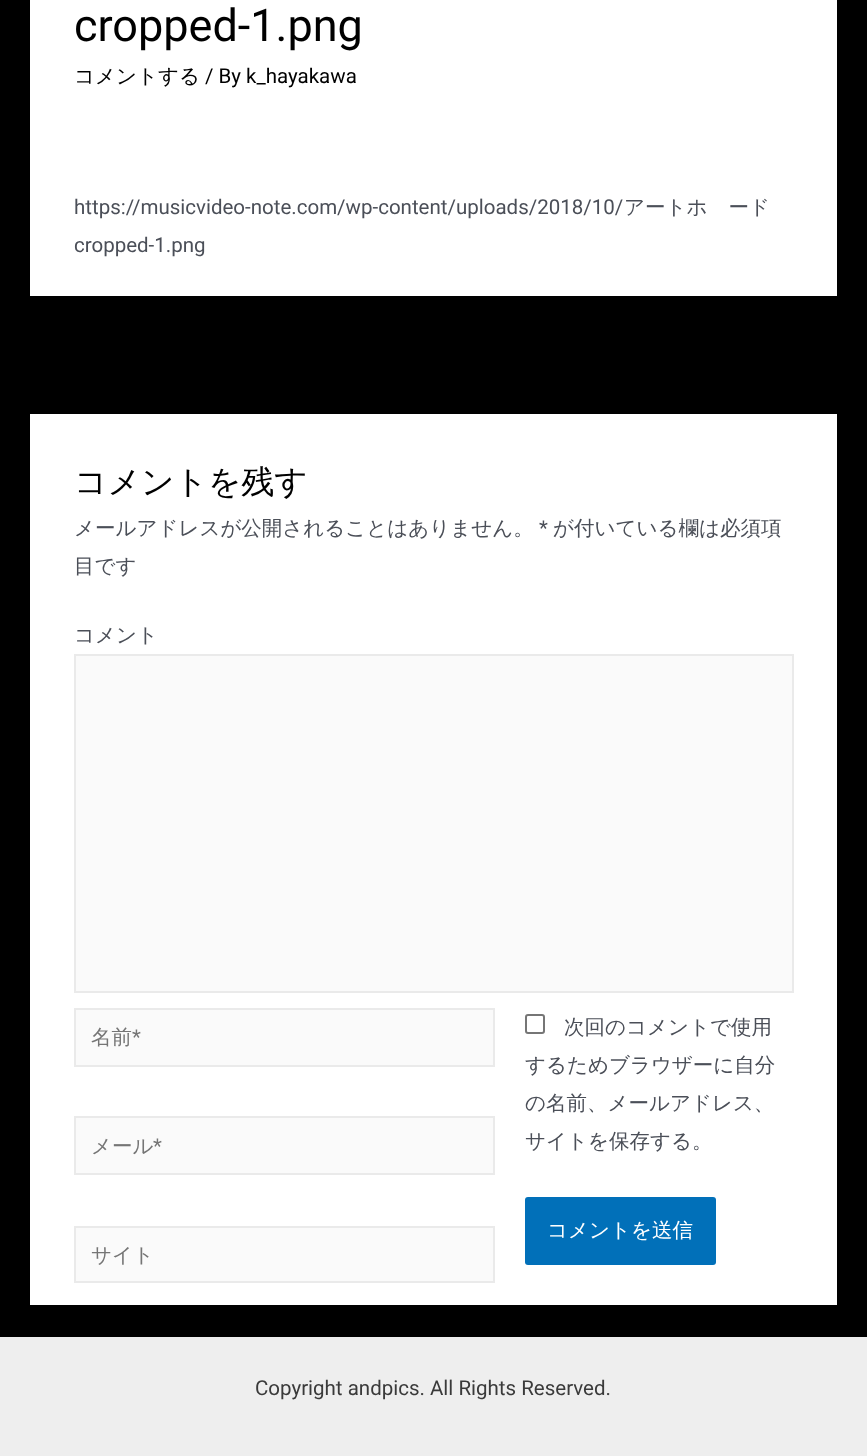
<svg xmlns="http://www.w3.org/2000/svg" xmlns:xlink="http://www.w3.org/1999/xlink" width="867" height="1456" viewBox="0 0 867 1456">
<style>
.cls-1{font:45px Roboto;fill:#000000}
.cls-2{font:500 20.5px WenQuanYi Zen Hei;fill:#000000}
.cls-3{font:20.5px Roboto;fill:#000000}
.cls-4{font:20.5px Roboto;fill:#4b4f58}
.cls-5{font:500 20.5px WenQuanYi Zen Hei;fill:#4b4f58}
.cls-6{font:500 32.75px WenQuanYi Zen Hei;fill:#000000}
.cls-7{font:500 20.5px WenQuanYi Zen Hei;fill:#757575}
.cls-8{font:20.5px Roboto;fill:#757575}
.cls-9{font:500 20.5px WenQuanYi Zen Hei;fill:#ffffff}
.cls-10{font:20.5px Roboto;fill:#3a3a3a}
</style>
<rect width="100%" height="100%" fill="#000000"/>
<rect fill="#ffffff" x="30" y="0" width="807" height="296"/>
<rect fill="#ffffff" x="30" y="414" width="807" height="891"/>
<rect fill="#fafafa" stroke="#eaeaea" stroke-width="2" x="75" y="655" width="718" height="337"/>
<rect fill="#fafafa" stroke="#eaeaea" stroke-width="2" x="75" y="1009" width="419" height="57"/>
<rect fill="#fafafa" stroke="#eaeaea" stroke-width="2" x="75" y="1117" width="419" height="57"/>
<rect fill="#fafafa" stroke="#eaeaea" stroke-width="2" x="75" y="1227" width="419" height="55"/>
<rect fill="none" stroke="#767676" stroke-width="2" x="526" y="1015" width="18" height="18" rx="2"/>
<rect fill="#0170b9" x="525" y="1197" width="191" height="68" rx="3"/>
<rect fill="#eeeeee" x="0" y="1337" width="867" height="119"/>
<text class="cls-1" x="74" y="41">cropped-1.png</text>
<text class="cls-2" x="74" y="83">コメントする</text>
<text class="cls-3" x="205" y="83">/ By k_hayakawa</text>
<text class="cls-4" x="74" y="214">https://musicvideo-note.com/wp-content/uploads/2018/10/</text>
<text class="cls-5" x="624" y="214">アートボード</text>
<text class="cls-4" x="74" y="252">cropped-1.png</text>
<text class="cls-6" x="74" y="493">コメントを残す</text>
<text class="cls-5" x="74" y="535">メールアドレスが公開されることはありません。</text>
<text class="cls-4" x="539" y="535">*</text>
<text class="cls-5" x="553" y="535">が付いている欄は必須項</text>
<text class="cls-5" x="74" y="573">目です</text>
<text class="cls-5" x="74" y="642">コメント</text>
<text class="cls-7" x="91" y="1044">名前</text>
<text class="cls-8" x="132" y="1044">*</text>
<text class="cls-7" x="91" y="1153">メール</text>
<text class="cls-8" x="153" y="1153">*</text>
<text class="cls-7" x="91" y="1262">サイト</text>
<text class="cls-5" x="564" y="1034">次回のコメントで使用</text>
<text class="cls-5"><tspan x="525" y="1072">するためブラウザーに自分</tspan><tspan x="525" y="1110">の名前、メールアドレス、</tspan><tspan x="525" y="1148">サイトを保存する。</tspan></text>
<text class="cls-9" x="547" y="1237">コメントを送信</text>
<text class="cls-10" x="255" y="1395">Copyright andpics. All Rights Reserved.</text>
</svg>
